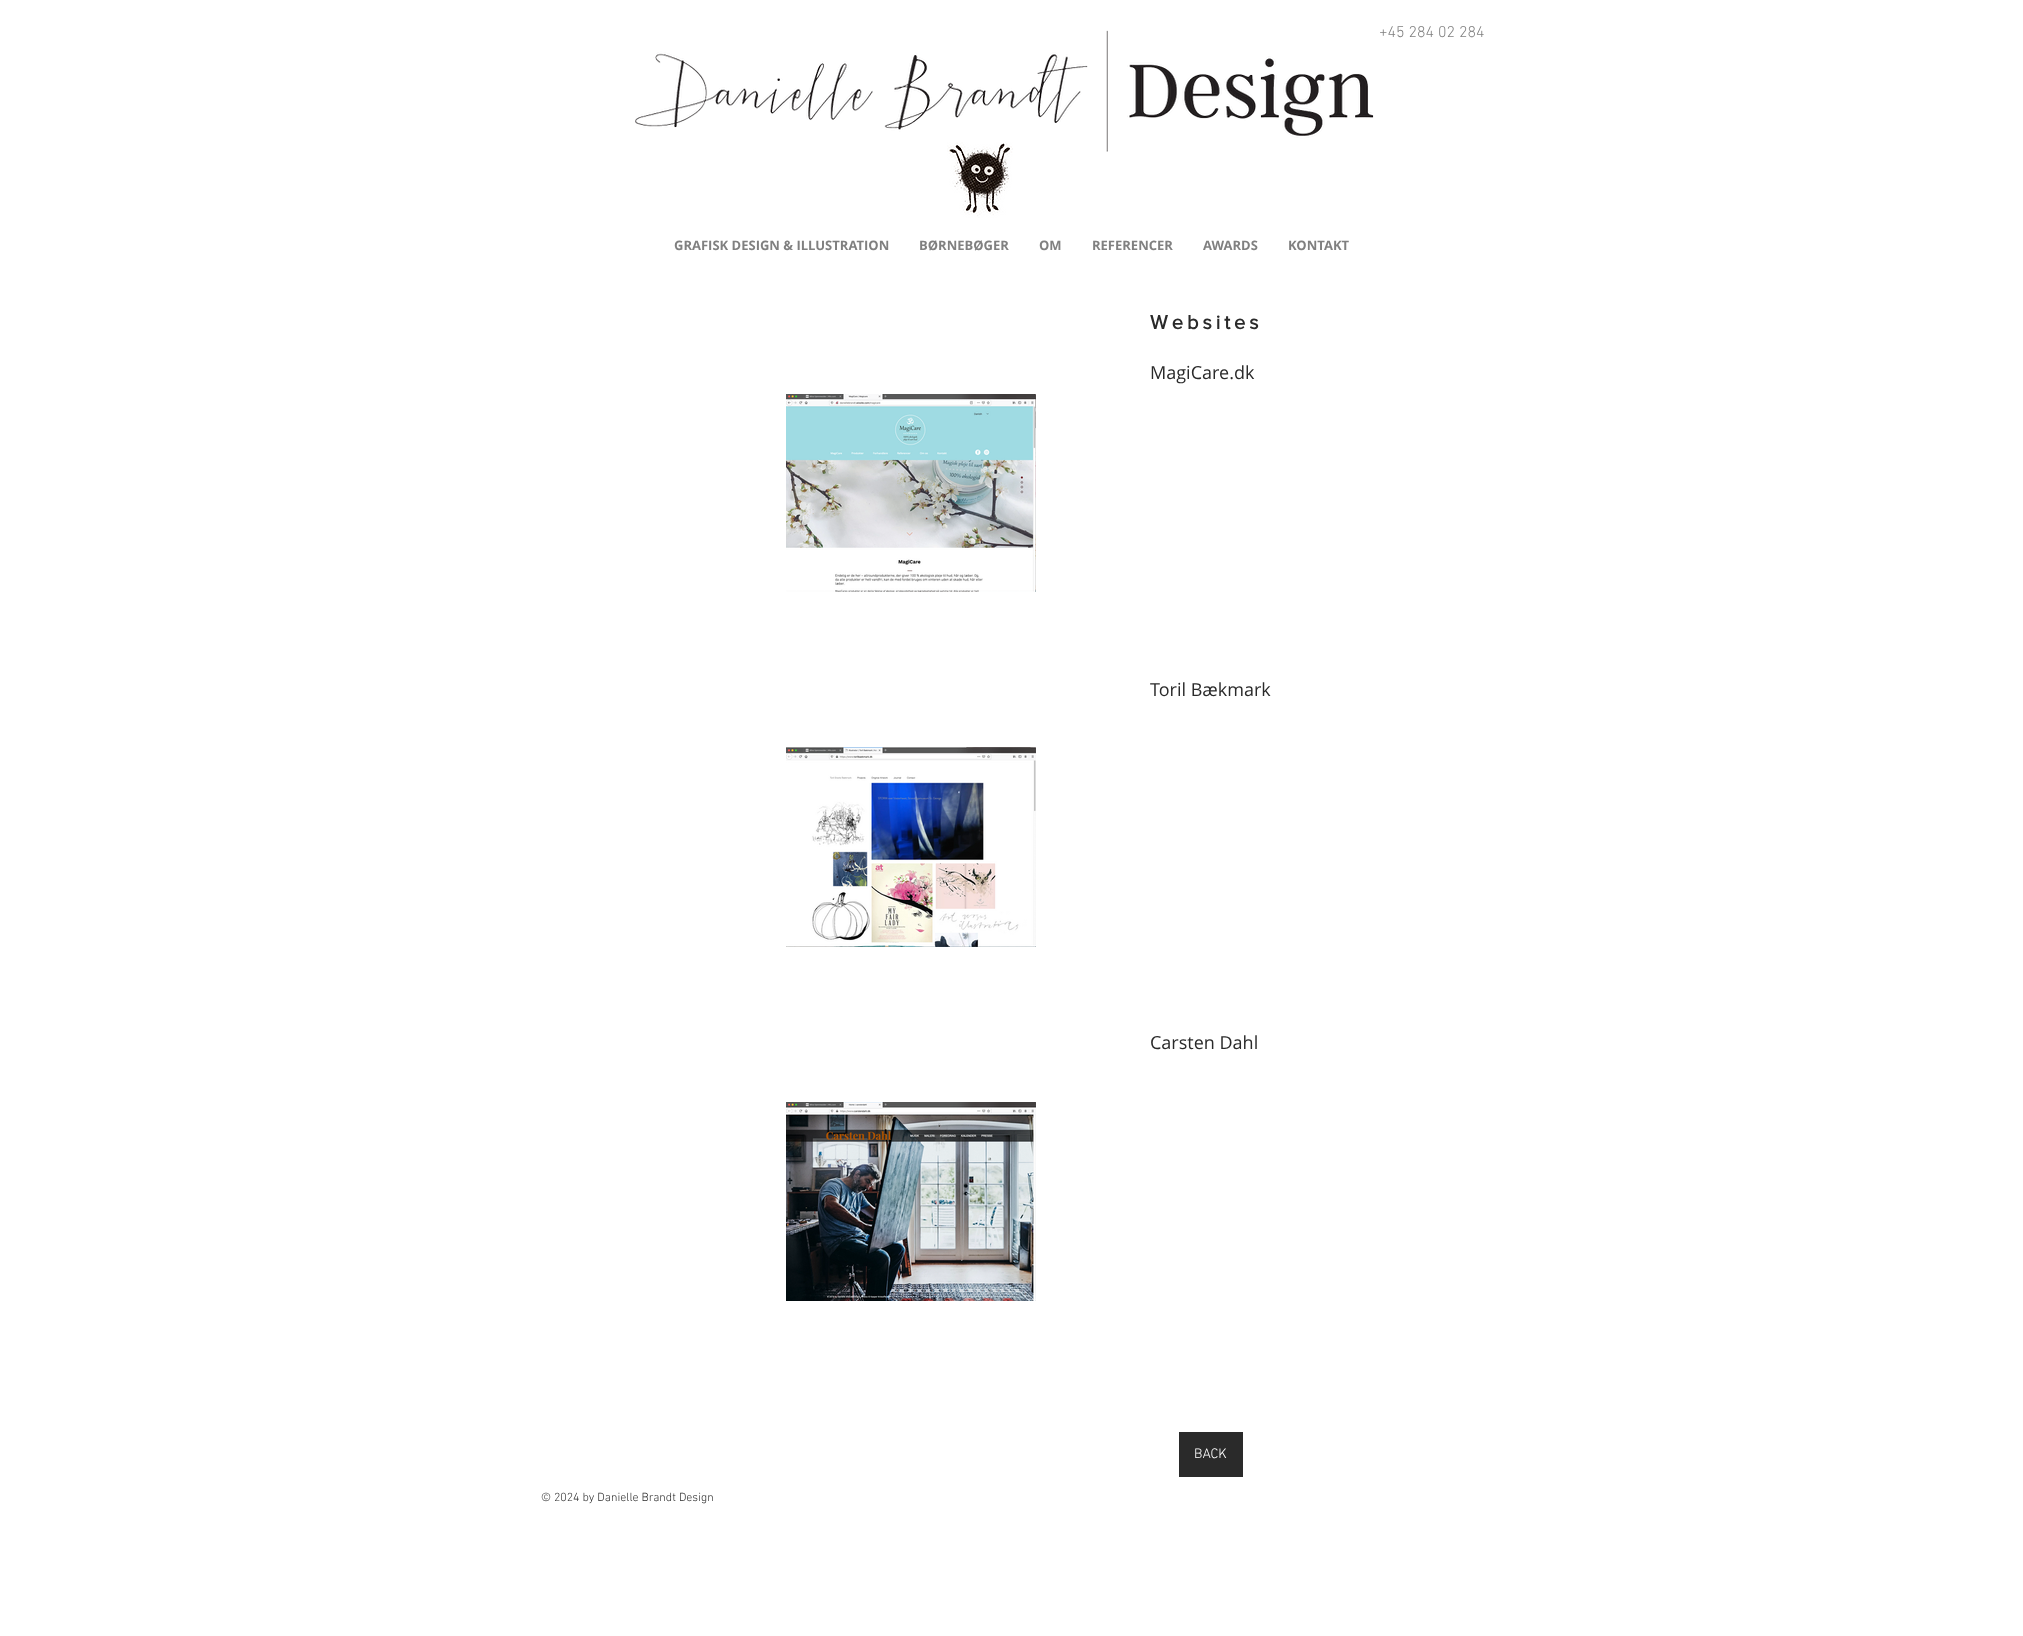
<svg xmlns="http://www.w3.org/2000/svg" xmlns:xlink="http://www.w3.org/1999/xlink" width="2023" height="1636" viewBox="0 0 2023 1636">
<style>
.cls-1{font:300 16px 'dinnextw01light';fill:#808080}
.cls-2{font:bold 13px Open Sans;fill:#808080}
.cls-3{font:bold 20px 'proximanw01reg';letter-spacing:4px;fill:#2a2a2a}
.cls-4{font:18px Open Sans;fill:#2a2a2a}
.cls-5{font:300 14px 'dinnextw01light';fill:#ffffff}
.cls-6{font:300 12px 'dinnextw01light';fill:#2a2a2a}
</style>
<rect width="100%" height="100%" fill="#ffffff"/>
<image xlink:href="image1.png" x="947" y="142" width="66" height="76"/>
<image xlink:href="image0.png" x="635" y="30" width="739" height="122"/>
<image xlink:href="image2.png" x="786" y="394" width="250" height="198"/>
<image xlink:href="image3.png" x="786" y="747" width="250" height="200"/>
<image xlink:href="image4.png" x="786" y="1102" width="250" height="199"/>
<rect fill="#2a2a2a" x="1179" y="1432" width="64" height="45"/>
<text class="cls-1" x="1379" y="37">+45 284 02 284</text>
<text class="cls-2" x="674" y="250">GRAFISK DESIGN &amp; ILLUSTRATION</text>
<text class="cls-2" x="919" y="250">BØRNEBØGER</text>
<text class="cls-2" x="1039" y="250">OM</text>
<text class="cls-2" x="1092" y="250">REFERENCER</text>
<text class="cls-2" x="1203" y="250">AWARDS</text>
<text class="cls-2" x="1288" y="250">KONTAKT</text>
<text class="cls-3" x="1150" y="329">Websites</text>
<text class="cls-4" x="1150" y="379">MagiCare.dk</text>
<text class="cls-4" x="1150" y="696">Toril Bækmark</text>
<text class="cls-4" x="1150" y="1049">Carsten Dahl</text>
<text class="cls-5" x="1194" y="1458">BACK</text>
<text class="cls-6" x="541" y="1501">© 2024 by Danielle Brandt Design</text>
</svg>
